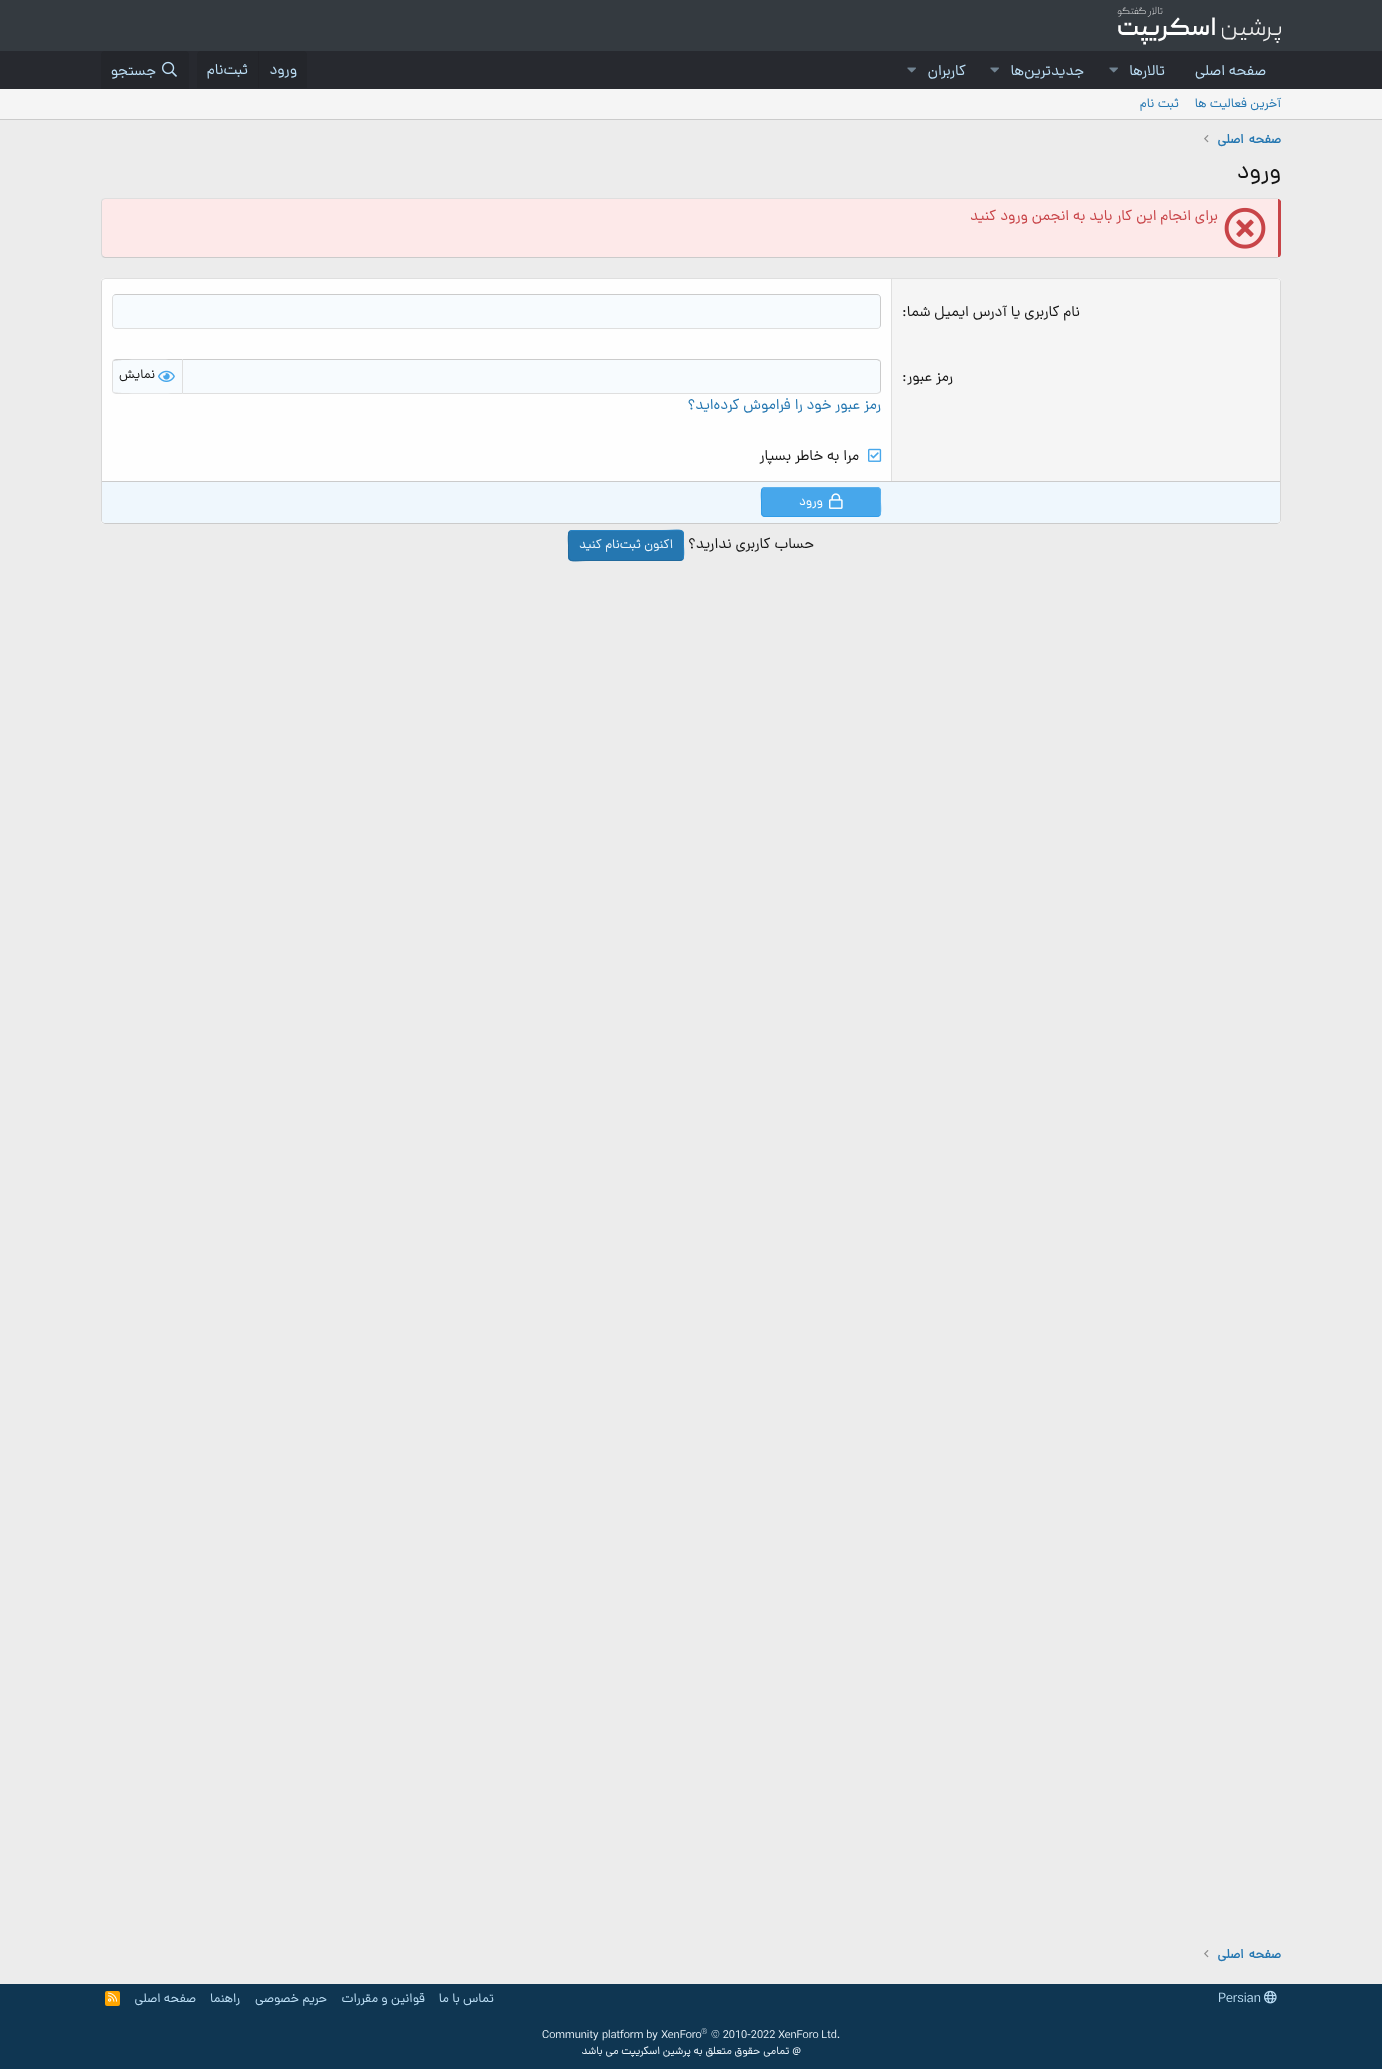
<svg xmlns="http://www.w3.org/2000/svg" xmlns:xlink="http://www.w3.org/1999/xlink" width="1382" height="2069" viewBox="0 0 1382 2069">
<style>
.cls-1{font:15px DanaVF;direction:rtl;fill:#bcdef5}
.cls-2{font:13px DanaVF;direction:rtl;fill:#2577b1}
.cls-3{font:bold 13px DanaVF;direction:rtl;fill:#2577b1}
.cls-4{font:24px DanaVF;direction:rtl;fill:#141414}
.cls-5{font:15px DanaVF;direction:rtl;fill:#c84448}
.cls-6{font:15px DanaVF;direction:rtl;fill:#141414}
.cls-7{font:15px DanaVF;fill:#141414}
.cls-8{font:13px DanaVF;direction:rtl;fill:#141414}
.cls-9{font:15px DanaVF;direction:rtl;fill:#2577b1}
.cls-10{font:13px DanaVF;direction:rtl;fill:#ffffff}
.cls-11{font:13px DanaVF;direction:rtl;fill:#edf6fd}
.cls-12{font:13px DanaVF;fill:#bcdef5}
.cls-13{font:13px DanaVF;direction:rtl;fill:#bcdef5}
.cls-14{font:11px DanaVF;fill:#edf6fd}
.cls-15{font:8px DanaVF;fill:#edf6fd}
.cls-16{font:11px DanaVF;direction:rtl;fill:#edf6fd}
</style>
<rect width="100%" height="100%" fill="#ececec"/>
<rect fill="#343a40" x="0" y="0" width="1382" height="51"/>
<image xlink:href="image0.png" x="1117" y="6" width="164" height="39"/>
<rect fill="#27292f" x="0" y="51" width="1382" height="38"/>
<image xlink:href="image1.png" x="1109" y="67" width="9" height="6"/>
<image xlink:href="image1.png" x="990" y="67" width="9" height="6"/>
<image xlink:href="image1.png" x="907" y="67" width="9" height="6"/>
<path fill="#24262b" d="M201 51H303C305 51 307 53 307 55V88H197V55C197 53 199 51 201 51Z"/>
<rect fill="#222328" x="258" y="51" width="1" height="37"/>
<path fill="#24262b" d="M105 51H185C187 51 189 53 189 55V89H101V55C101 53 103 51 105 51Z"/>
<image xlink:href="image2.png" x="162" y="61" width="15" height="16"/>
<rect fill="#f5f5f5" x="0" y="89" width="1382" height="30"/>
<rect fill="#cbcbcb" x="0" y="119" width="1382" height="1"/>
<image xlink:href="image3.png" x="1204" y="135" width="5" height="8"/>
<path fill="#fde9e9" d="M105 199H1277C1278 199 1278 200 1278 202V254C1278 256 1278 257 1277 257H105C103 257 102 256 102 254V202C102 200 103 199 105 199Z"/>
<path fill="#dfdfdf" d="M105 198L102 199L103 200L105 199H1278H1279L1277 198Z"/>
<path fill="#c84448" d="M1281 254V201L1279 199H1278V200V256V257H1279C1280 257 1281 255 1281 254Z"/>
<path fill="#cbcbcb" d="M105 258H1277L1279 257H1278H105L103 256L102 257Z"/>
<path fill="#d8d8d8" d="M101 202V254L102 257L103 256L102 254V201L103 200L102 199Z"/>
<image xlink:href="image4.png" x="1224" y="207" width="42" height="42"/>
<rect fill="#fefefe" x="101" y="278" width="1180" height="246" rx="4"/>
<path fill="none" stroke="#dfdfdf" d="M102.5 279.5L105 278.5H1277L1279.5 279.5"/>
<path fill="none" stroke="#d8d8d8" d="M1279.5 279.5C1280 280 1280.5 281 1280.5 282V520C1280.5 521 1280 522 1279.5 522.5"/>
<path fill="none" stroke="#cbcbcb" d="M1279.5 522.5L1277 523.5H105L102.5 522.5"/>
<path fill="none" stroke="#d8d8d8" d="M102.5 522.5C102 522 101.5 521 101.5 520V282C101.5 281 102 280 102.5 279.5"/>
<path fill="#f5f5f5" d="M891 279H1277C1278.5 279 1280 280.5 1280 282V344H891Z"/>
<rect fill="#dfdfdf" x="891" y="279" width="1" height="202"/>
<rect fill="#f7fbfe" x="112" y="294" width="769" height="35" rx="4"/>
<path fill="none" stroke="#cbcbcb" d="M113.5 295.5C114 295 115 294.5 116 294.5H877C878 294.5 879 295 879.5 295.5C880 296 880.5 297 880.5 298V325C880.5 326 880 327 879.5 327.5"/>
<path fill="none" stroke="#dfdfdf" d="M879.5 327.5C879 328 878 328.5 877 328.5H116C115 328.5 114 328 113.5 327.5C113 327 112.5 326 112.5 325V298C112.5 297 113 296 113.5 295.5"/>
<rect fill="#f5f5f5" x="892" y="344" width="388" height="137"/>
<path fill="#f7fbfe" d="M183 359H877C879 359 881 361 881 363V390C881 392 879 394 877 394H183Z"/>
<path fill="#cbcbcb" d="M183 359V360H877L879 361L880 360L877 359Z"/>
<path fill="#cbcbcb" d="M879 392C880 392 880 391 880 390V363C880 362 880 361 879 361L880 360C880.5 361 881 362 881 363V390C881 391 880.5 392 880 393Z"/>
<path fill="#dfdfdf" d="M183 393V394H877L880 393L879 392L877 393Z"/>
<path fill="#f7fbfe" d="M116 359H183V394H116C114 394 112 392 112 390V363C112 361 114 359 116 359Z"/>
<path fill="#cbcbcb" d="M116 359L113 360L114 361C115 359 175 360 182 360L183 359Z"/>
<path fill="#dfdfdf" d="M183 359L182 360V393L183 394Z"/>
<path fill="#dfdfdf" d="M183 394L182 393C175 393 115 394 114 392L113 393L116 394Z"/>
<path fill="#dfdfdf" d="M112 363V390C112 391 112.5 392 113 393L114 392C113 392 113 391 113 390V363C113 362 113 361 114 361L113 360C112.5 361 112 362 112 363Z"/>
<image xlink:href="image5.png" x="158" y="370" width="17" height="12"/>
<image xlink:href="image6.png" x="868" y="448" width="14" height="14"/>
<path fill="#edf6fd" fill-opacity="0.9" d="M102 481H1280V520C1280 521.5 1278.5 523 1277 523H105C103.5 523 102 521.5 102 520Z"/>
<rect fill="#cbcbcb" x="102" y="481" width="1178" height="1"/>
<rect fill="#47a7eb" x="761" y="487" width="120" height="30" rx="4"/>
<path fill="none" stroke="#5eb2ed" d="M762.5 488.5L764.5 487.5H877C881 487.5 880.5 492 880.5 494.5V502C880.5 505 881.5 513.5 879.5 515.5"/>
<path fill="none" stroke="#309ce8" d="M879.5 515.5L877.5 516.5H765C761 516.5 761.5 512 761.5 509.5V502C761.5 499 760.5 490.5 762.5 488.5"/>
<image xlink:href="image7.png" x="829" y="493" width="14" height="16"/>
<rect fill="#2577b1" x="568" y="530" width="116" height="31" rx="4"/>
<path fill="none" stroke="#2985c6" d="M569.5 531.5L572 530.5H662C685 530.5 683.5 526 683.5 545.5C683.5 548.5 684.5 557 682.5 559.5"/>
<path fill="none" stroke="#21699c" d="M682.5 559.5L680 560.5H590C567 560.5 568.5 565 568.5 545.5C568.5 542.5 567.5 534 569.5 531.5"/>
<image xlink:href="image3.png" x="1204" y="1950" width="5" height="8"/>
<rect fill="#0f3652" x="0" y="1984" width="1382" height="85"/>
<image xlink:href="image8.png" x="1264" y="1990" width="13" height="14"/>
<rect fill="#ffa500" x="105" y="1991" width="15" height="15" rx="2"/>
<image xlink:href="image9.png" x="108" y="1992" width="10" height="10"/>
<text class="cls-1" x="1266" y="75">صفحه اصلی</text>
<text class="cls-1" x="1165" y="75">تالارها</text>
<text class="cls-1" x="1084" y="75">جدیدترین‌ها</text>
<text class="cls-1" x="966" y="75">کاربران</text>
<text class="cls-1" x="297" y="74">ورود</text>
<text class="cls-1" x="248" y="74">ثبت‌نام</text>
<text class="cls-1" x="156" y="75">جستجو</text>
<text class="cls-2" x="1281" y="107">آخرین فعالیت ها</text>
<text class="cls-2" x="1179" y="107">ثبت نام</text>
<text class="cls-3" x="1281" y="143" word-spacing="2">صفحه اصلی</text>
<text class="cls-4" x="1281" y="178">ورود</text>
<text class="cls-5" x="1218" y="220">برای انجام این کار باید به انجمن ورود کنید</text>
<text class="cls-6" x="1080" y="316">نام کاربری یا آدرس ایمیل شما</text>
<text class="cls-7" x="902" y="316">:</text>
<text class="cls-6" x="953" y="381">رمز عبور</text>
<text class="cls-7" x="902" y="381">:</text>
<text class="cls-8" x="155" y="378">نمایش</text>
<text class="cls-9" x="881" y="409">رمز عبور خود را فراموش کرده‌اید؟</text>
<text class="cls-6" x="859" y="460">مرا به خاطر بسپار</text>
<text class="cls-10" x="823" y="505">ورود</text>
<text class="cls-6" x="814" y="548">حساب کاربری ندارید؟</text>
<text class="cls-11" x="673" y="548">اکنون ثبت‌نام کنید</text>
<text class="cls-3" x="1281" y="1958" word-spacing="2">صفحه اصلی</text>
<text class="cls-12" x="1218" y="2002">Persian</text>
<text class="cls-13" x="494" y="2002">تماس با ما</text>
<text class="cls-13" x="425" y="2002">قوانین و مقررات</text>
<text class="cls-13" x="327" y="2002">حریم خصوصی</text>
<text class="cls-13" x="240" y="2002">راهنما</text>
<text class="cls-13" x="196" y="2002">صفحه اصلی</text>
<text class="cls-14" x="711" y="2038">© 2010-2022 XenForo Ltd.</text>
<text class="cls-15" x="701" y="2034">®</text>
<text class="cls-14" x="542" y="2038">Community platform by XenForo</text>
<text class="cls-16" x="801" y="2054">@ تمامی حقوق متعلق به پرشین اسکریپت می باشد</text>
</svg>
